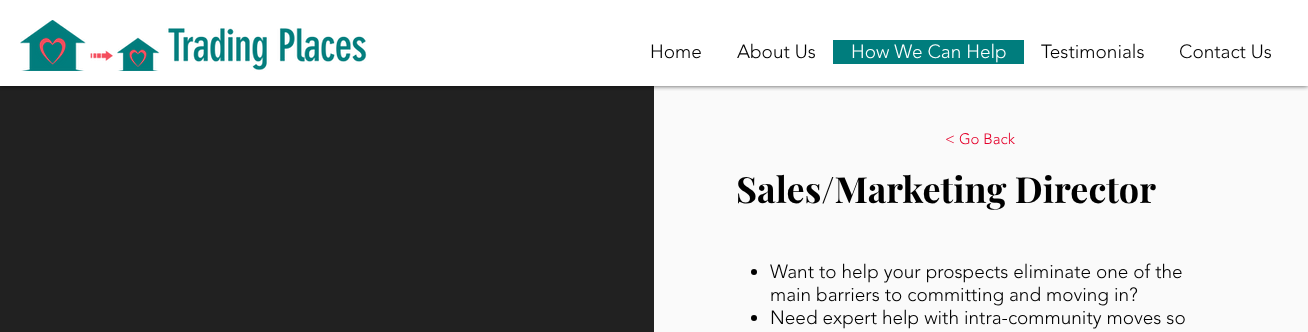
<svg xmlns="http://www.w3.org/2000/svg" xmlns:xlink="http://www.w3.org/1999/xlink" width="1308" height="332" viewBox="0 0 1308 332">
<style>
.cls-1{font:300 19px 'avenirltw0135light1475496';fill:#000000}
.cls-2{font:300 19px 'avenirltw0135light1475496';fill:#ffffff}
.cls-3{font:300 15px 'avenirltw0135light1475496';fill:#e4002b}
.cls-4{font:bold 36px Playfair Display;fill:#000000}
</style>
<defs>
<clipPath id="clip1"><rect x="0" y="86" width="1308" height="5"/></clipPath>
</defs>
<rect width="100%" height="100%" fill="#ffffff"/>
<rect fill="#212121" x="0" y="86" width="654" height="246"/>
<rect fill="#fafafa" x="654" y="86" width="654" height="246"/>
<g clip-path="url(#clip1)">
<rect fill="#000000" fill-opacity="0.7" filter="blur(2.5px)" x="0" y="0" width="1308" height="86"/>
</g>
<image xlink:href="image0.png" x="20" y="20" width="347" height="51"/>
<rect fill="#007d7d" x="833" y="40" width="191" height="24"/>
<circle fill="#000000" cx="754" cy="272" r="3"/>
<circle fill="#000000" cx="754" cy="318" r="3"/>
<text class="cls-1" x="650" y="58">Home</text>
<text class="cls-1" x="737" y="58">About Us</text>
<text class="cls-2" x="851" y="58">How We Can Help</text>
<text class="cls-1" x="1041" y="58">Testimonials</text>
<text class="cls-1" x="1179" y="58">Contact Us</text>
<text class="cls-3" x="945" y="144">&lt; Go Back</text>
<text class="cls-4" x="736" y="203">Sales/Marketing Director</text>
<text class="cls-1"><tspan x="770" y="278">Want to help your prospects eliminate one of the</tspan><tspan x="770" y="301">main barriers to committing and moving in?</tspan><tspan x="770" y="324">Need expert help with intra-community moves so</tspan></text>
</svg>
